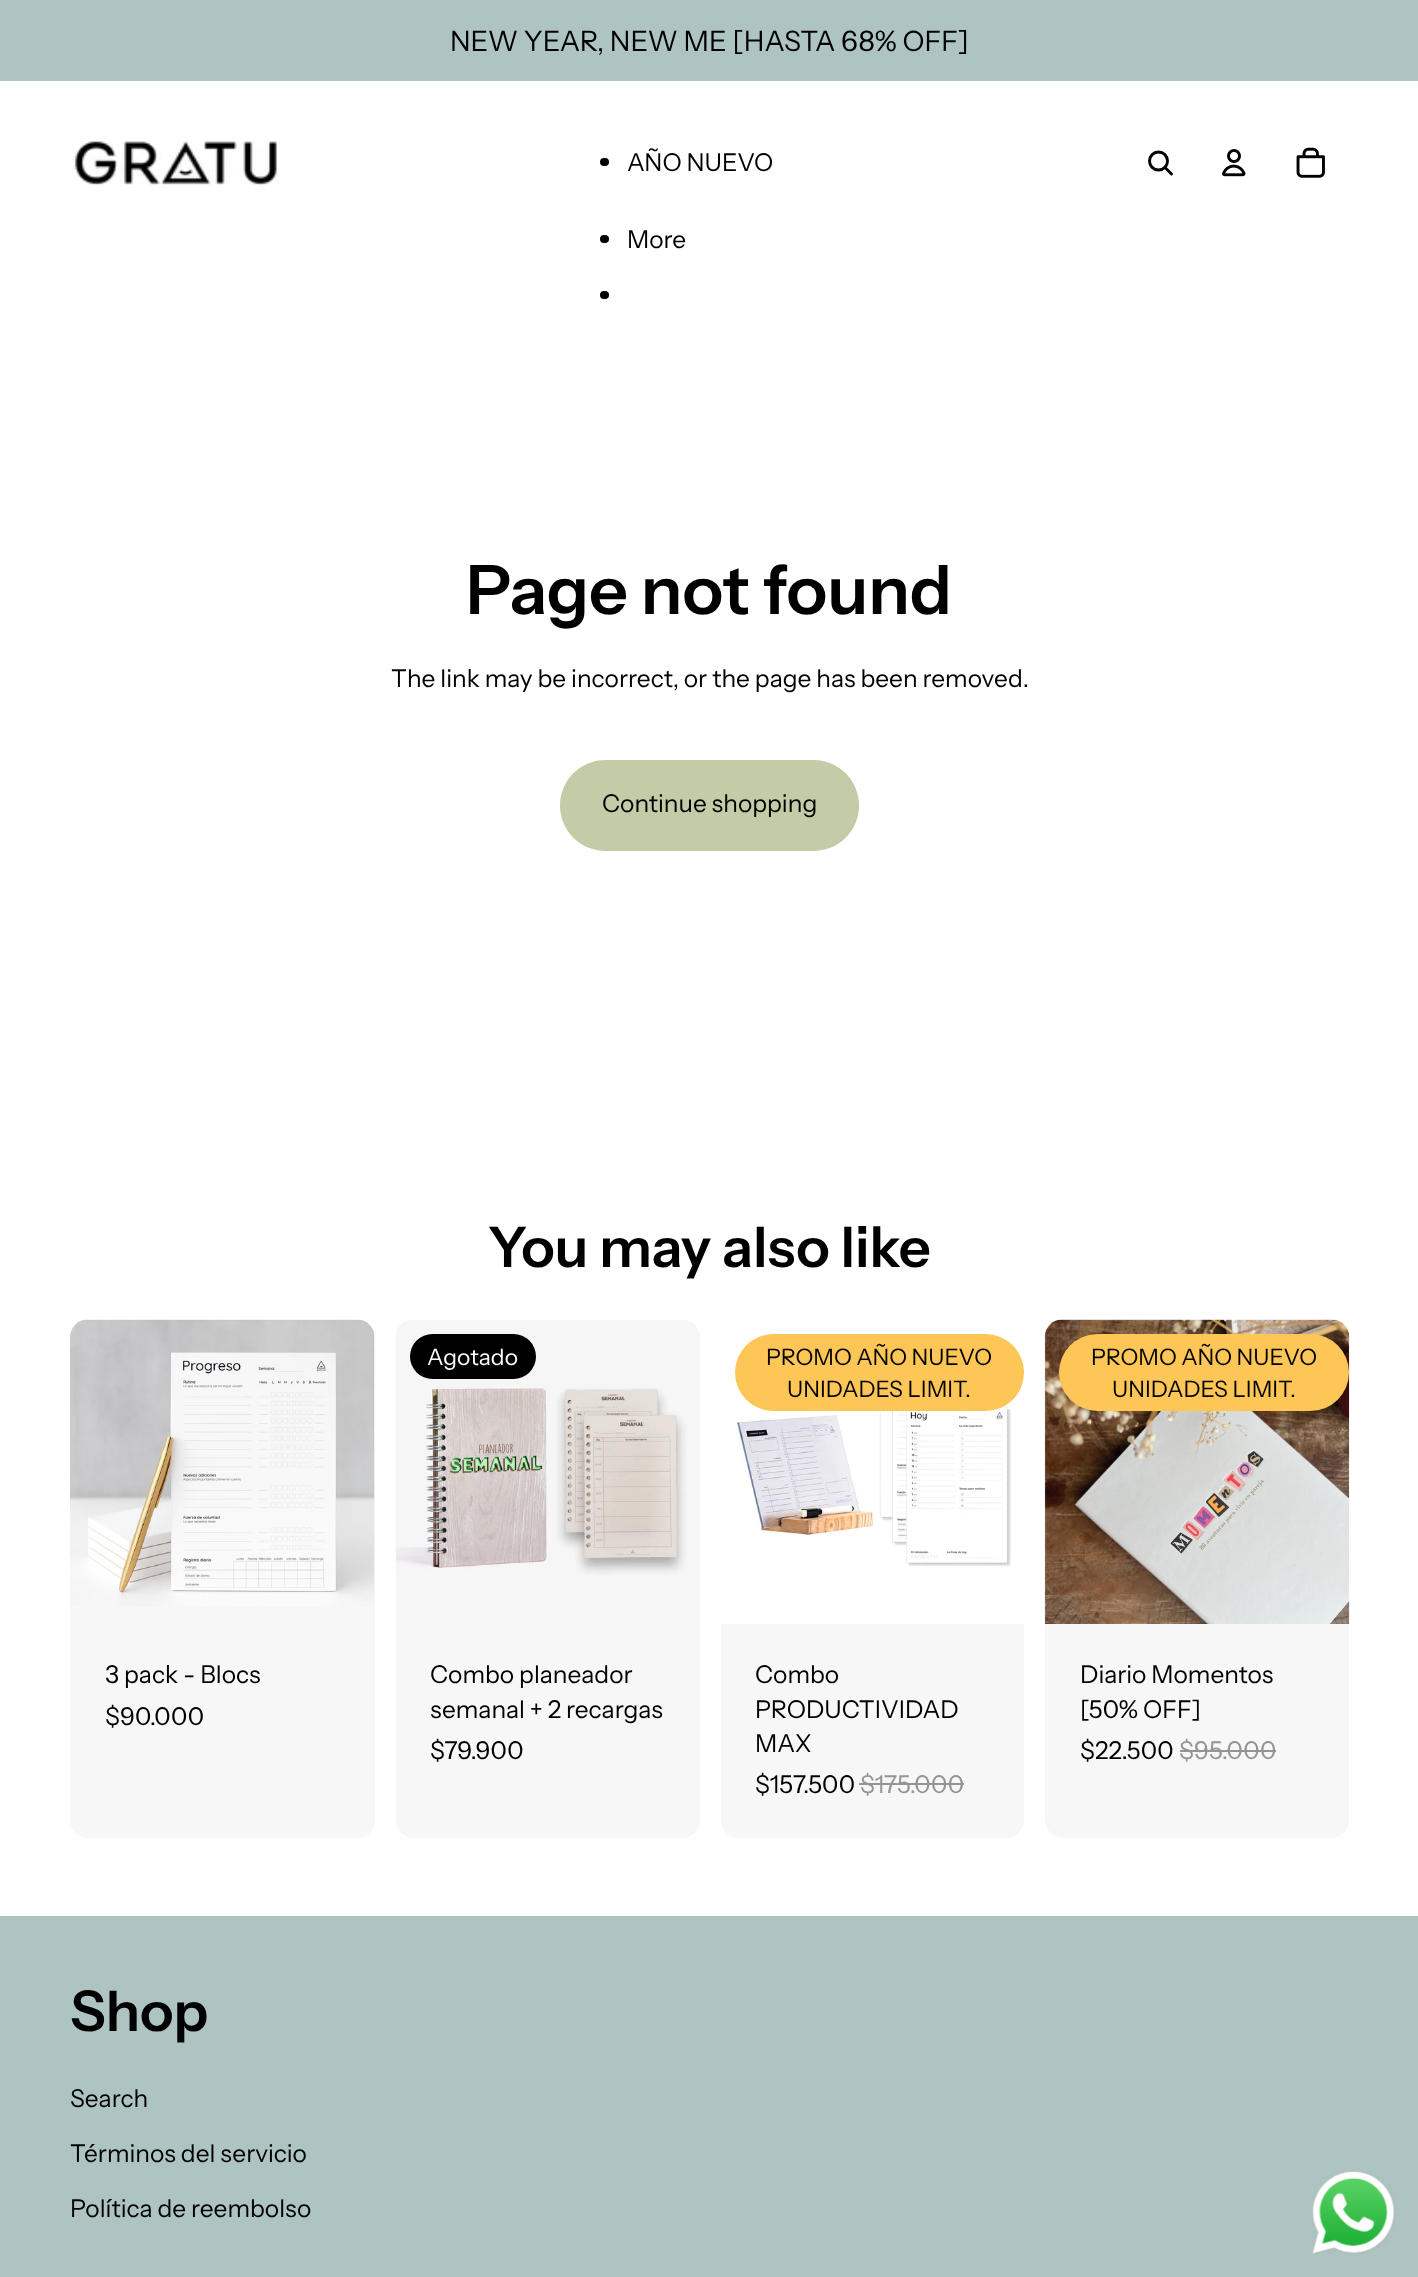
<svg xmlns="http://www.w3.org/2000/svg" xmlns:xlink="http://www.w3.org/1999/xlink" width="1418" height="2277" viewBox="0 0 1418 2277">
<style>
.cls-1{font:28px Instrument Sans;fill:#000000}
.cls-2{font:24.5px Instrument Sans;fill:#000000}
.cls-3{font:600 68px Instrument Sans;fill:#000000}
.cls-4{font:600 56px Instrument Sans;fill:#000000}
.cls-5{font:22.75px Instrument Sans;fill:#ffffff}
.cls-6{font:22.75px Instrument Sans;fill:#000000}
.cls-7{font:24.5px Instrument Sans;fill:#949494}
</style>
<rect width="100%" height="100%" fill="#ffffff"/>
<rect fill="#adc4c2" x="0" y="0" width="1418" height="81"/>
<image xlink:href="image0.png" x="72" y="141" width="208" height="46"/>
<rect fill="#000000" x="600" y="158" width="9" height="8" rx="4"/>
<rect fill="#000000" x="600" y="235" width="9" height="8" rx="4"/>
<rect fill="#000000" x="600" y="291" width="9" height="8" rx="4"/>
<circle fill="none" stroke="#000000" stroke-width="2.9" cx="1158.5" cy="161" r="9"/>
<path fill="none" stroke="#000000" stroke-width="2.9" stroke-linecap="round" stroke-linejoin="round" d="M1165 167.5L1171.5 174"/>
<image xlink:href="image1.png" x="1222" y="149" width="24" height="28"/>
<image xlink:href="image2.png" x="1296" y="147" width="29" height="31"/>
<rect fill="#c3cca6" x="560" y="760" width="299" height="91" rx="45.5"/>
<rect fill="#f7f7f7" x="70" y="1320" width="305" height="518" rx="18"/>
<image xlink:href="image3.png" x="70" y="1319" width="305" height="287"/>
<rect fill="#f7f7f7" x="396" y="1320" width="304" height="518" rx="18"/>
<image xlink:href="image4.png" x="395" y="1320" width="304" height="255"/>
<rect fill="#000000" x="410" y="1334" width="126" height="45" rx="22.5"/>
<rect fill="#f7f7f7" x="721" y="1320" width="303" height="518" rx="18"/>
<image xlink:href="image5.png" x="721" y="1320" width="303" height="304"/>
<rect fill="#fdc656" x="735" y="1334" width="289" height="77" rx="38.5"/>
<rect fill="#949494" x="859" y="1783" width="105" height="2"/>
<rect fill="#f7f7f7" x="1045" y="1320" width="304" height="518" rx="18"/>
<image xlink:href="image6.png" x="1044" y="1319" width="306" height="305"/>
<rect fill="#fdc656" x="1059" y="1334" width="290" height="77" rx="38.5"/>
<rect fill="#949494" x="1180" y="1750" width="96" height="2"/>
<rect fill="#adc4c2" x="0" y="1916" width="1418" height="361"/>
<image xlink:href="image7.png" x="1312" y="2171" width="84" height="83"/>
<text class="cls-1" x="450" y="51">NEW YEAR, NEW ME [HASTA 68% OFF]</text>
<text class="cls-2" x="627" y="171">AÑO NUEVO</text>
<text class="cls-2" x="627" y="248">More</text>
<text class="cls-3" x="466" y="614">Page not found</text>
<text class="cls-2" x="391" y="687">The link may be incorrect, or the page has been removed.</text>
<text class="cls-2" x="602" y="812">Continue shopping</text>
<text class="cls-4" x="488" y="1267">You may also like</text>
<text class="cls-2"><tspan x="105" y="1683">3 pack - Blocs</tspan><tspan x="105" y="1725">$90.000</tspan></text>
<text class="cls-5" x="427" y="1365">Agotado</text>
<text class="cls-2"><tspan x="430" y="1683">Combo planeador</tspan><tspan x="430" y="1718">semanal + 2 recargas</tspan><tspan x="430" y="1759">$79.900</tspan></text>
<text class="cls-6" x="766" y="1365">PROMO AÑO NUEVO</text>
<text class="cls-6" x="787" y="1397">UNIDADES LIMIT.</text>
<text class="cls-2"><tspan x="755" y="1683">Combo</tspan><tspan x="755" y="1718">PRODUCTIVIDAD</tspan><tspan x="755" y="1752">MAX</tspan><tspan x="755" y="1793">$157.500</tspan></text>
<text class="cls-7" x="860" y="1793">$175.000</text>
<text class="cls-6" x="1091" y="1365">PROMO AÑO NUEVO</text>
<text class="cls-6" x="1112" y="1397">UNIDADES LIMIT.</text>
<text class="cls-2"><tspan x="1080" y="1683">Diario Momentos</tspan><tspan x="1080" y="1718">[50% OFF]</tspan><tspan x="1080" y="1759">$22.500</tspan></text>
<text class="cls-7" x="1179" y="1759">$95.000</text>
<text class="cls-4" x="70" y="2031">Shop</text>
<text class="cls-2" x="70" y="2107">Search</text>
<text class="cls-2" x="70" y="2162">Términos del servicio</text>
<text class="cls-2" x="70" y="2217">Política de reembolso</text>
</svg>
